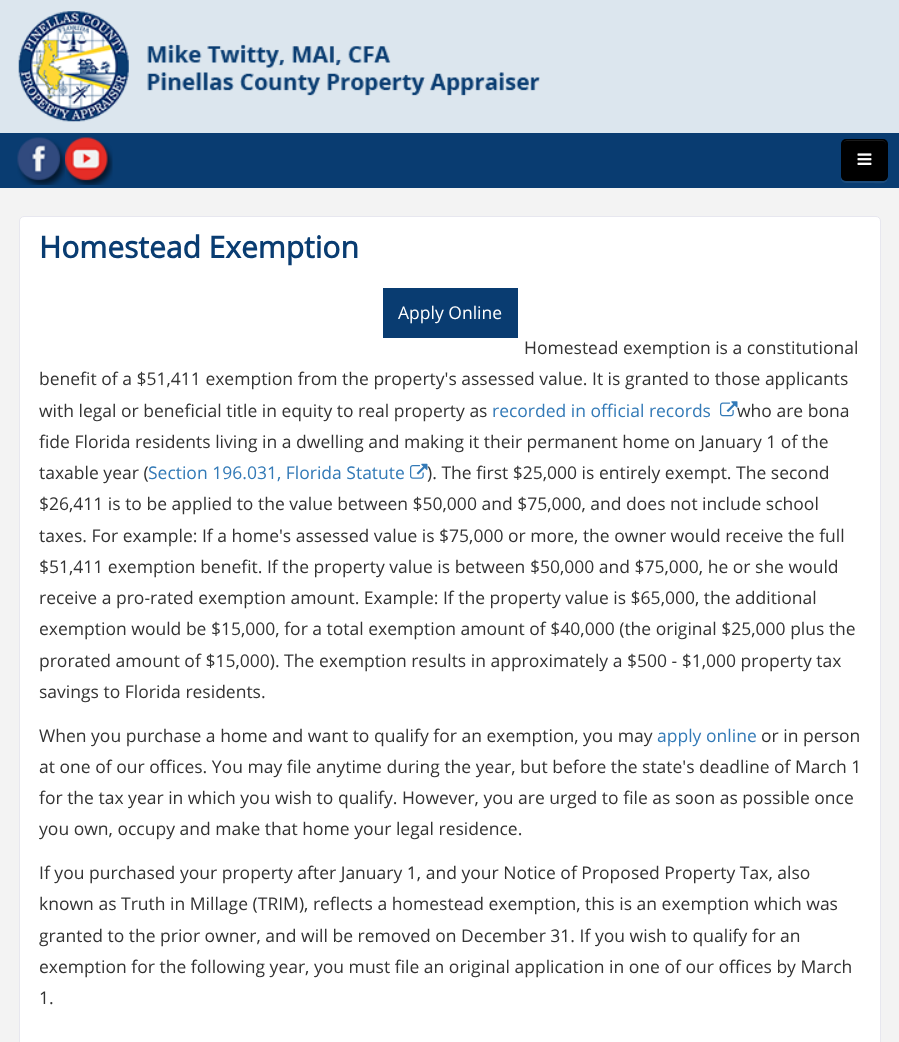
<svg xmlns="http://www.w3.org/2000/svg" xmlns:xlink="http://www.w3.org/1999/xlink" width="899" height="1042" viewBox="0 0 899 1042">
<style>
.cls-1{font:bold 30px Open Sans;fill:#093c71}
.cls-2{font:17.5px Open Sans;fill:#ffffff}
.cls-3{font:17.5px Open Sans;fill:#333333}
.cls-4{font:17.5px Open Sans;fill:#337ab7}
</style>
<rect width="100%" height="100%" fill="#f3f3f3"/>
<rect fill="#dce6ee" x="0" y="0" width="899" height="133"/>
<image xlink:href="image0.png" x="18" y="11" width="522" height="111"/>
<rect fill="#093c71" x="0" y="133" width="899" height="55"/>
<image xlink:href="image1.png" x="17" y="137" width="48" height="48"/>
<image xlink:href="image2.png" x="65" y="137" width="48" height="48"/>
<path fill="#1b4b7c" d="M841 143V179C842 184 848 183 852 183H864C891 183 888 187 888 162V150C888 149 889 145 887 143V177C886 182 880 181 876 181H852C842 181 841 181 841 171Z"/>
<rect fill="#000000" x="841" y="139" width="47" height="42" rx="5"/>
<path fill="#1a1a1a" d="M846 141H882C885 141 886 143 886 145V144C886 142 884 140 882 140H847C846 140 844 141 844 142Z"/>
<path fill="none" stroke="#000000" stroke-opacity="0.25" stroke-width="1.2" d="M885.5 179.5C885 180 883.5 180.5 882.5 180.5H846C845 180.5 844 180 843 179.5"/>
<path fill="none" stroke="#000000" stroke-opacity="0.15" stroke-width="1.2" d="M843 179.5C841 177 842 173 842 171V160C842 135 838.5 139.5 864.5 139.5C890 139.5 887 135 887 160V171C887 173 887.5 177 885.5 179.5"/>
<image xlink:href="image3.png" x="857" y="153" width="15" height="12"/>
<rect fill="#ffffff" stroke="#e7e7ef" x="19.5" y="216.5" width="861" height="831" rx="4.5"/>
<rect fill="#093c71" x="383" y="288" width="135" height="50"/>
<image xlink:href="image4.png" x="720" y="401" width="18" height="16"/>
<image xlink:href="image5.png" x="410" y="463" width="18" height="16"/>
<text class="cls-1" x="39" y="258">Homestead Exemption</text>
<text class="cls-2" x="398" y="319">Apply Online</text>
<text class="cls-3" x="524" y="354">Homestead exemption is a constitutional</text>
<text class="cls-3"><tspan x="39" y="385">benefit of a $51,411 exemption from the property's assessed value. It is granted to those applicants</tspan><tspan x="39" y="417">with legal or beneficial title in equity to real property as</tspan></text>
<text class="cls-4" x="492" y="417">recorded in official records</text>
<text class="cls-3" x="737" y="417">who are bona</text>
<text class="cls-3"><tspan x="39" y="448">fide Florida residents living in a dwelling and making it their permanent home on January 1 of the</tspan><tspan x="39" y="479">taxable year (</tspan></text>
<text class="cls-4" x="148" y="479">Section 196.031, Florida Statute</text>
<text class="cls-3" x="427" y="479">). The first $25,000 is entirely exempt. The second</text>
<text class="cls-3"><tspan x="39" y="510">$26,411 is to be applied to the value between $50,000 and $75,000, and does not include school</tspan><tspan x="39" y="542">taxes. For example: If a home's assessed value is $75,000 or more, the owner would receive the full</tspan><tspan x="39" y="573">$51,411 exemption benefit. If the property value is between $50,000 and $75,000, he or she would</tspan><tspan x="39" y="604">receive a pro-rated exemption amount. Example: If the property value is $65,000, the additional</tspan><tspan x="39" y="635">exemption would be $15,000, for a total exemption amount of $40,000 (the original $25,000 plus the</tspan><tspan x="39" y="667">prorated amount of $15,000). The exemption results in approximately a $500 - $1,000 property tax</tspan><tspan x="39" y="698">savings to Florida residents.</tspan></text>
<text class="cls-3" x="39" y="742">When you purchase a home and want to qualify for an exemption, you may</text>
<text class="cls-4" x="657" y="742">apply online</text>
<text class="cls-3" x="761" y="742">or in person</text>
<text class="cls-3"><tspan x="39" y="773">at one of our offices. You may file anytime during the year, but before the state's deadline of March 1</tspan><tspan x="39" y="804">for the tax year in which you wish to qualify. However, you are urged to file as soon as possible once</tspan><tspan x="39" y="835">you own, occupy and make that home your legal residence.</tspan></text>
<text class="cls-3"><tspan x="39" y="879">If you purchased your property after January 1, and your Notice of Proposed Property Tax, also</tspan><tspan x="39" y="910">known as Truth in Millage (TRIM), reflects a homestead exemption, this is an exemption which was</tspan><tspan x="39" y="942">granted to the prior owner, and will be removed on December 31. If you wish to qualify for an</tspan><tspan x="39" y="973">exemption for the following year, you must file an original application in one of our offices by March</tspan><tspan x="39" y="1004">1.</tspan></text>
</svg>
